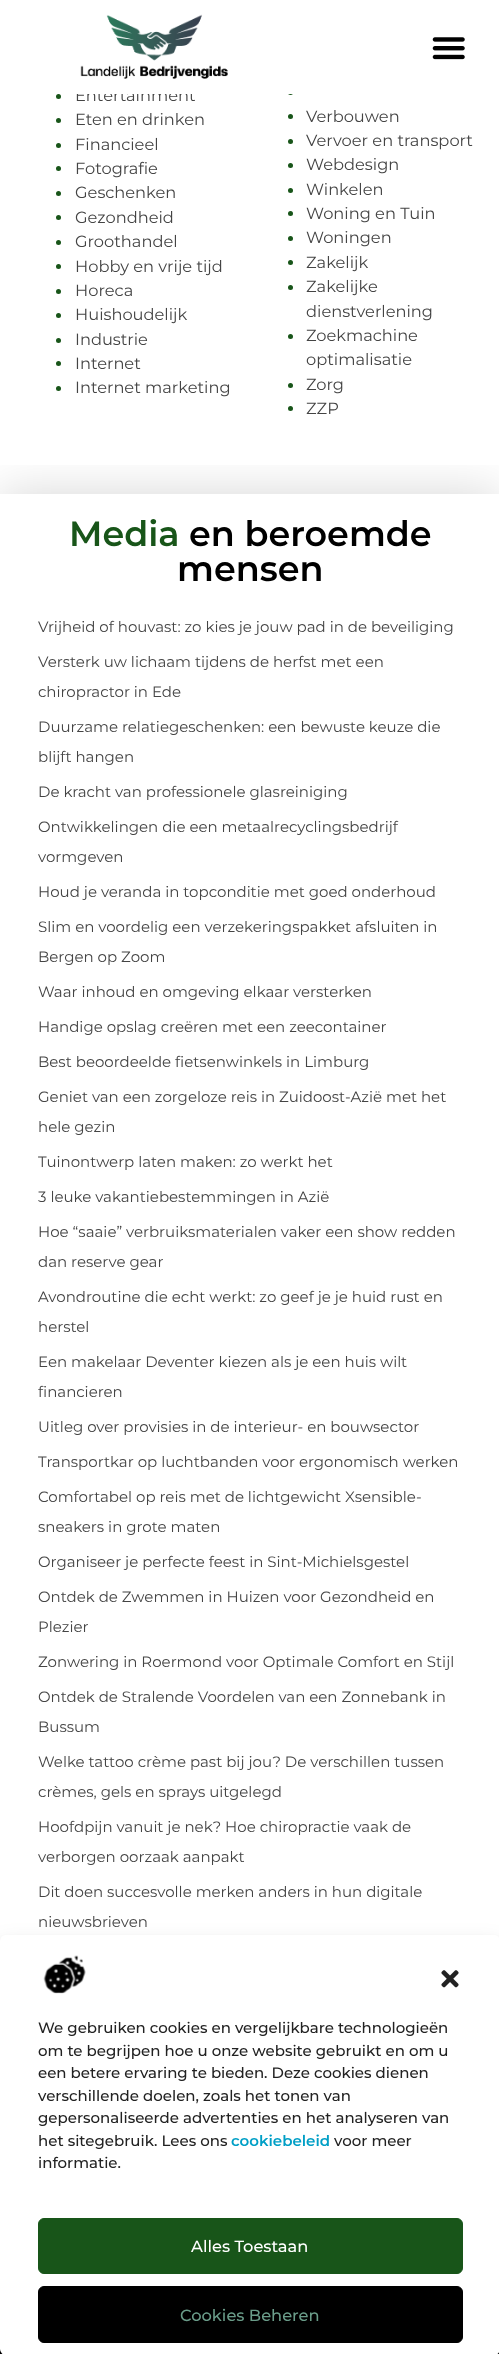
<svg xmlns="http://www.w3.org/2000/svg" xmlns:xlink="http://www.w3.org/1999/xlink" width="499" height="2354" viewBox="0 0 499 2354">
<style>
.cls-1{font:16.25px Montserrat;fill:#444444}
.cls-2{font:600 35px Montserrat;fill:#185519}
.cls-3{font:600 35px Montserrat;fill:#000000}
.cls-4{font:15px Montserrat;fill:#444444}
.cls-5{font:500 15px Montserrat;fill:#222222}
.cls-6{font:600 15px Montserrat;fill:#009fc6}
.cls-7{font:500 16.25px Montserrat;fill:#ffffff}
.cls-8{font:500 16.25px Montserrat;fill:#6a9c89}
</style>
<defs>
<clipPath id="clip1"><rect x="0" y="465" width="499" height="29"/></clipPath>
</defs>
<rect width="100%" height="100%" fill="#ffffff"/>
<circle fill="#185519" cx="58.5" cy="96.5" r="2.5"/>
<circle fill="#185519" cx="290.5" cy="92.5" r="2.5"/>
<rect fill="#000000" fill-opacity="0.33" filter="blur(0.5px)" x="0" y="0" width="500" height="94"/>
<circle fill="#185519" cx="58.5" cy="120.5" r="2.5"/>
<circle fill="#185519" cx="290.5" cy="116.5" r="2.5"/>
<circle fill="#185519" cx="58.5" cy="145.5" r="2.5"/>
<circle fill="#185519" cx="290.5" cy="141.5" r="2.5"/>
<circle fill="#185519" cx="58.5" cy="168.5" r="2.5"/>
<circle fill="#185519" cx="290.5" cy="165.5" r="2.5"/>
<circle fill="#185519" cx="58.5" cy="193.5" r="2.5"/>
<circle fill="#185519" cx="290.5" cy="190.5" r="2.5"/>
<circle fill="#185519" cx="58.5" cy="217.5" r="2.5"/>
<circle fill="#185519" cx="290.5" cy="213.5" r="2.5"/>
<circle fill="#185519" cx="58.5" cy="242.5" r="2.5"/>
<circle fill="#185519" cx="290.5" cy="238.5" r="2.5"/>
<circle fill="#185519" cx="58.5" cy="266.5" r="2.5"/>
<circle fill="#185519" cx="290.5" cy="262.5" r="2.5"/>
<circle fill="#185519" cx="58.5" cy="291.5" r="2.5"/>
<circle fill="#185519" cx="290.5" cy="287.5" r="2.5"/>
<circle fill="#185519" cx="58.5" cy="315.5" r="2.5"/>
<circle fill="#185519" cx="58.5" cy="340.5" r="2.5"/>
<circle fill="#185519" cx="290.5" cy="336.5" r="2.5"/>
<circle fill="#185519" cx="58.5" cy="363.5" r="2.5"/>
<circle fill="#185519" cx="58.5" cy="388.5" r="2.5"/>
<circle fill="#185519" cx="290.5" cy="385.5" r="2.5"/>
<circle fill="#185519" cx="290.5" cy="408.5" r="2.5"/>
<g clip-path="url(#clip1)">
<rect fill="#000000" fill-opacity="0.16" filter="blur(25px)" x="0" y="494" width="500" height="1664"/>
</g>
<rect fill="#000000" x="0" y="2349" width="499" height="5"/>
<rect fill="#000000" fill-opacity="0.23" filter="blur(4px)" x="0" y="1943" width="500" height="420" rx="6"/>
<rect fill="#000000" fill-opacity="0.19" filter="blur(12.5px)" x="0" y="1948" width="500" height="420" rx="6"/>
<rect fill="#ffffff" x="0" y="1935" width="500" height="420" rx="6"/>
<image xlink:href="image2.png" x="43" y="1955" width="43" height="39"/>
<image xlink:href="image3.png" x="441" y="1970" width="18" height="18"/>
<rect fill="#185519" stroke="#185519" x="38.5" y="2218.5" width="424" height="55" rx="5.5"/>
<rect fill="#000000" stroke="#000000" x="38.5" y="2286.5" width="424" height="56" rx="5.5"/>
<text class="cls-1" x="75" y="101">Entertainment</text>
<rect fill="#ffffff" x="0" y="0" width="499" height="94"/>
<image xlink:href="image1.png" x="432" y="37" width="33" height="23"/>
<image xlink:href="image0.png" x="80" y="14" width="148" height="65"/>
<text class="cls-1" x="75" y="125">Eten en drinken</text>
<text class="cls-1" x="306" y="122">Verbouwen</text>
<text class="cls-1" x="75" y="150">Financieel</text>
<text class="cls-1" x="306" y="146">Vervoer en transport</text>
<text class="cls-1" x="75" y="174">Fotografie</text>
<text class="cls-1" x="306" y="170">Webdesign</text>
<text class="cls-1" x="75" y="198">Geschenken</text>
<text class="cls-1" x="306" y="195">Winkelen</text>
<text class="cls-1" x="75" y="223">Gezondheid</text>
<text class="cls-1" x="306" y="219">Woning en Tuin</text>
<text class="cls-1" x="75" y="247">Groothandel</text>
<text class="cls-1" x="306" y="243">Woningen</text>
<text class="cls-1" x="75" y="272">Hobby en vrije tijd</text>
<text class="cls-1" x="306" y="268">Zakelijk</text>
<text class="cls-1" x="75" y="296">Horeca</text>
<text class="cls-1"><tspan x="306" y="292">Zakelijke</tspan><tspan x="306" y="317">dienstverlening</tspan></text>
<text class="cls-1"><tspan x="75" y="320">Huishoudelijk</tspan><tspan x="75" y="345">Industrie</tspan></text>
<text class="cls-1"><tspan x="306" y="341">Zoekmachine</tspan><tspan x="306" y="365">optimalisatie</tspan></text>
<text class="cls-1"><tspan x="75" y="369">Internet</tspan><tspan x="75" y="393">Internet marketing</tspan></text>
<text class="cls-1"><tspan x="306" y="390">Zorg</tspan><tspan x="306" y="414">ZZP</tspan></text>
<text class="cls-2" x="69" y="546">Media</text>
<text class="cls-3" x="189" y="546">en beroemde</text>
<text class="cls-3" x="177" y="581">mensen</text>
<text class="cls-4" x="38" y="632">Vrijheid of houvast: zo kies je jouw pad in de beveiliging</text>
<text class="cls-4" x="38" y="667">Versterk uw lichaam tijdens de herfst met een</text>
<text class="cls-4" x="38" y="697">chiropractor in Ede</text>
<text class="cls-4" x="38" y="732">Duurzame relatiegeschenken: een bewuste keuze die</text>
<text class="cls-4" x="38" y="762">blijft hangen</text>
<text class="cls-4" x="38" y="797">De kracht van professionele glasreiniging</text>
<text class="cls-4" x="38" y="832">Ontwikkelingen die een metaalrecyclingsbedrijf</text>
<text class="cls-4" x="38" y="862">vormgeven</text>
<text class="cls-4" x="38" y="897">Houd je veranda in topconditie met goed onderhoud</text>
<text class="cls-4" x="38" y="932">Slim en voordelig een verzekeringspakket afsluiten in</text>
<text class="cls-4" x="38" y="962">Bergen op Zoom</text>
<text class="cls-4" x="38" y="997">Waar inhoud en omgeving elkaar versterken</text>
<text class="cls-4" x="38" y="1032">Handige opslag creëren met een zeecontainer</text>
<text class="cls-4" x="38" y="1067">Best beoordeelde fietsenwinkels in Limburg</text>
<text class="cls-4" x="38" y="1102">Geniet van een zorgeloze reis in Zuidoost-Azië met het</text>
<text class="cls-4" x="38" y="1132">hele gezin</text>
<text class="cls-4" x="38" y="1167">Tuinontwerp laten maken: zo werkt het</text>
<text class="cls-4" x="38" y="1202">3 leuke vakantiebestemmingen in Azië</text>
<text class="cls-4" x="38" y="1237">Hoe “saaie” verbruiksmaterialen vaker een show redden</text>
<text class="cls-4" x="38" y="1267">dan reserve gear</text>
<text class="cls-4" x="38" y="1302">Avondroutine die echt werkt: zo geef je je huid rust en</text>
<text class="cls-4" x="38" y="1332">herstel</text>
<text class="cls-4" x="38" y="1367">Een makelaar Deventer kiezen als je een huis wilt</text>
<text class="cls-4" x="38" y="1397">financieren</text>
<text class="cls-4" x="38" y="1432">Uitleg over provisies in de interieur- en bouwsector</text>
<text class="cls-4" x="38" y="1467">Transportkar op luchtbanden voor ergonomisch werken</text>
<text class="cls-4" x="38" y="1502">Comfortabel op reis met de lichtgewicht Xsensible-</text>
<text class="cls-4" x="38" y="1532">sneakers in grote maten</text>
<text class="cls-4" x="38" y="1567">Organiseer je perfecte feest in Sint-Michielsgestel</text>
<text class="cls-4" x="38" y="1602">Ontdek de Zwemmen in Huizen voor Gezondheid en</text>
<text class="cls-4" x="38" y="1632">Plezier</text>
<text class="cls-4" x="38" y="1667">Zonwering in Roermond voor Optimale Comfort en Stijl</text>
<text class="cls-4" x="38" y="1702">Ontdek de Stralende Voordelen van een Zonnebank in</text>
<text class="cls-4" x="38" y="1732">Bussum</text>
<text class="cls-4" x="38" y="1767">Welke tattoo crème past bij jou? De verschillen tussen</text>
<text class="cls-4" x="38" y="1797">crèmes, gels en sprays uitgelegd</text>
<text class="cls-4" x="38" y="1832">Hoofdpijn vanuit je nek? Hoe chiropractie vaak de</text>
<text class="cls-4" x="38" y="1862">verborgen oorzaak aanpakt</text>
<text class="cls-4" x="38" y="1897">Dit doen succesvolle merken anders in hun digitale</text>
<text class="cls-4" x="38" y="1927">nieuwsbrieven</text>
<text class="cls-5"><tspan x="38" y="2033">We gebruiken cookies en vergelijkbare technologieën</tspan><tspan x="38" y="2056">om te begrijpen hoe u onze website gebruikt en om u</tspan><tspan x="38" y="2078">een betere ervaring te bieden. Deze cookies dienen</tspan><tspan x="38" y="2101">verschillende doelen, zoals het tonen van</tspan><tspan x="38" y="2123">gepersonaliseerde advertenties en het analyseren van</tspan><tspan x="38" y="2146">het sitegebruik. Lees ons</tspan></text>
<text class="cls-6" x="231" y="2146">cookiebeleid</text>
<text class="cls-5" x="334" y="2146">voor meer</text>
<text class="cls-5" x="38" y="2168">informatie.</text>
<text class="cls-7" x="191" y="2252">Alles Toestaan</text>
<text class="cls-8" x="180" y="2321">Cookies Beheren</text>
</svg>
